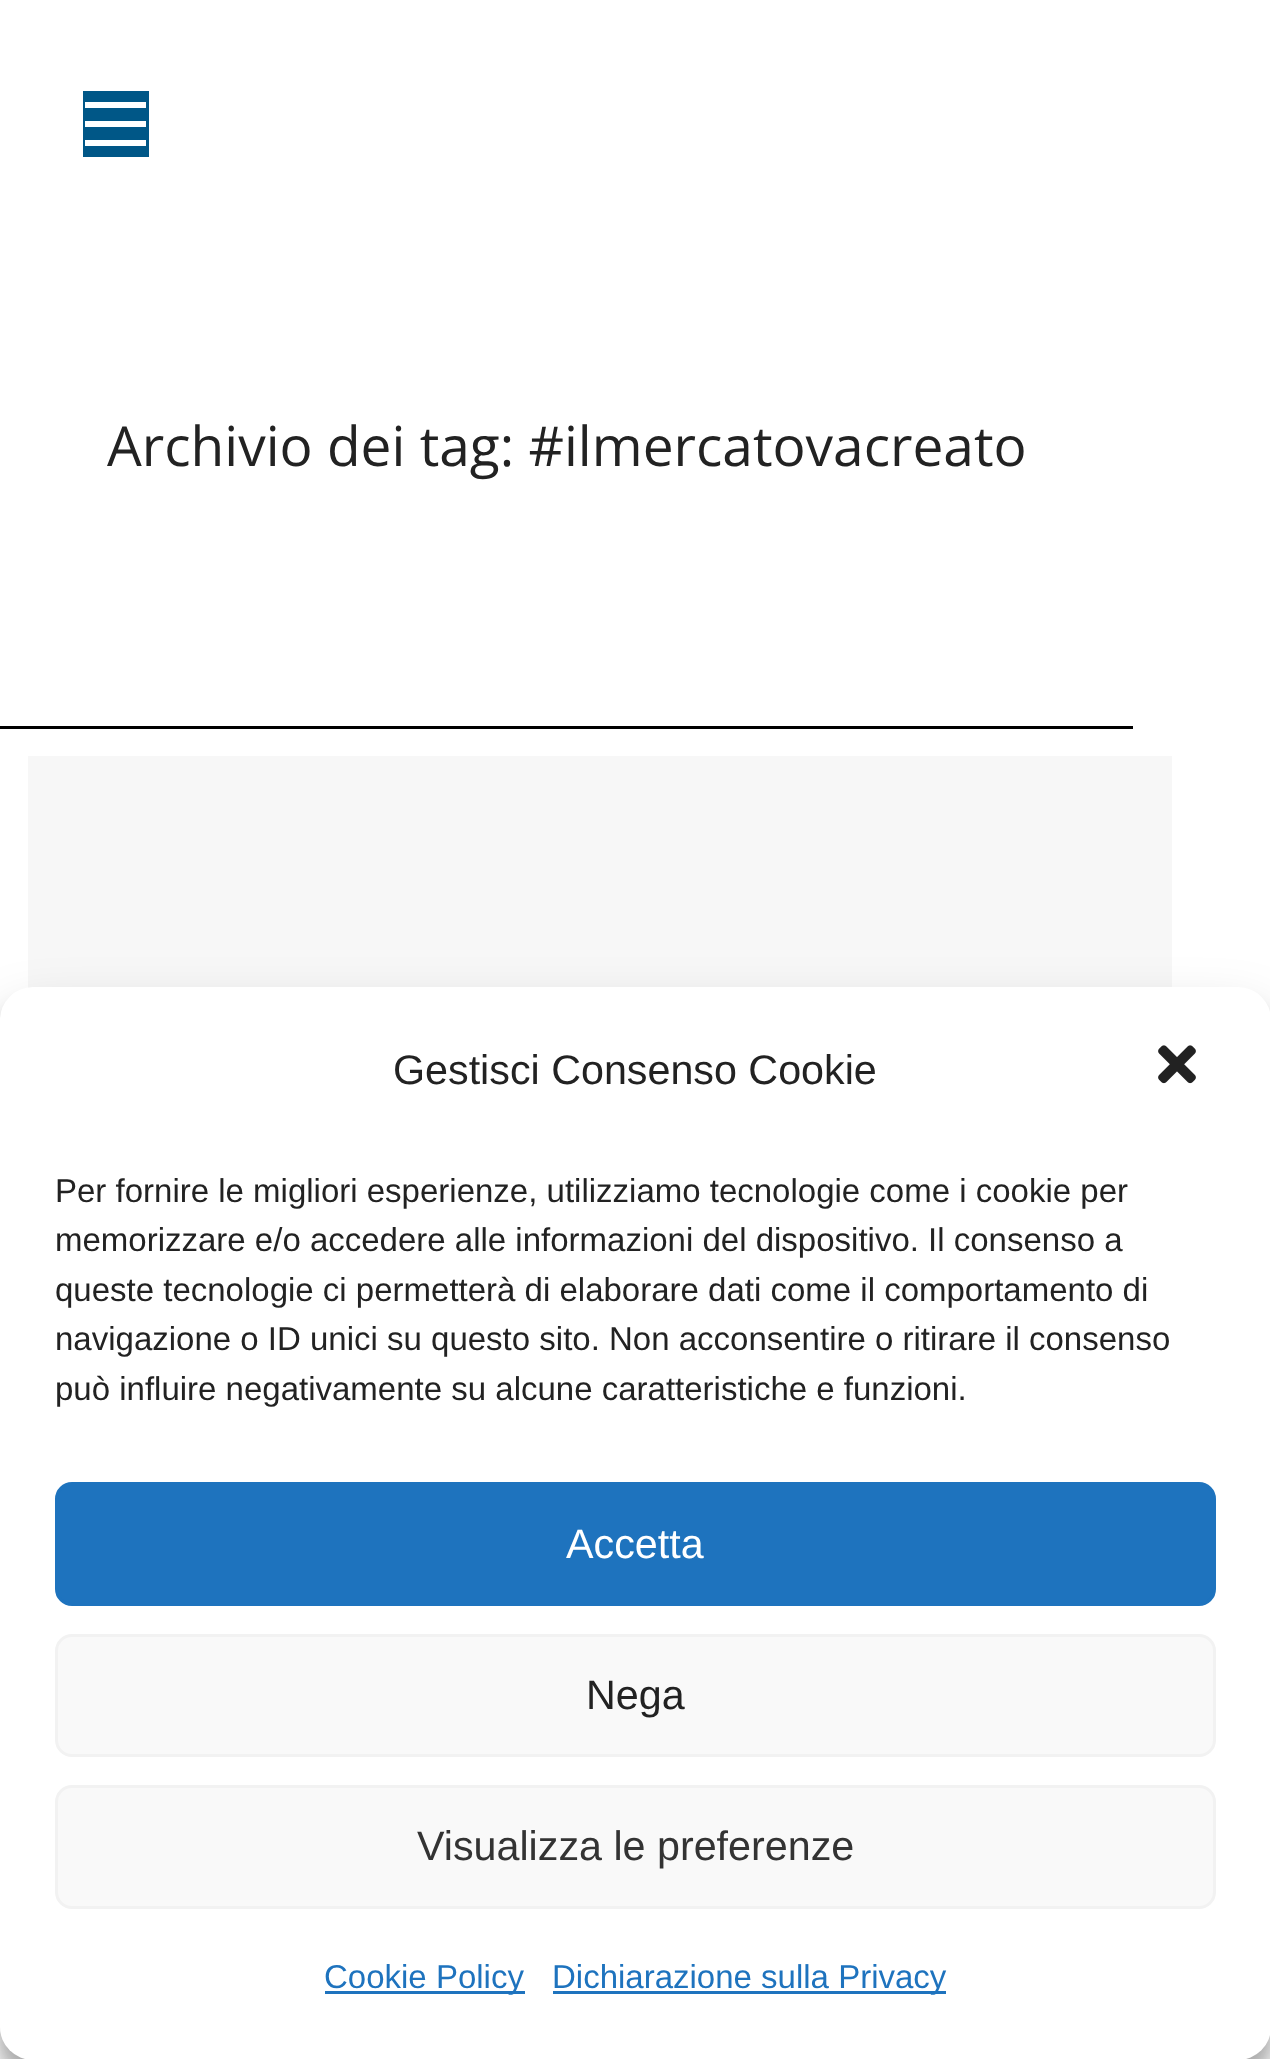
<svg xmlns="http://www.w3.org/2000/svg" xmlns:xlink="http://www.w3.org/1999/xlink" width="1270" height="2059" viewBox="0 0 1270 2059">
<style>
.cls-1{font:55px Open Sans;fill:#222222}
.cls-2{font:41.25px Liberation Sans;fill:#222222}
.cls-3{font:33px Liberation Sans;fill:#222222}
.cls-4{font:41.25px Liberation Sans;fill:#ffffff}
.cls-5{font:41.25px Liberation Sans;fill:#333333}
.cls-6{font:33px Liberation Sans;fill:#1e73be}
</style>
<rect width="100%" height="100%" fill="#ffffff"/>
<rect fill="#005787" x="83" y="91" width="66" height="66"/>
<rect fill="#ffffff" x="85" y="102" width="61" height="6"/>
<rect fill="#ffffff" x="85" y="121" width="61" height="6"/>
<rect fill="#ffffff" x="85" y="140" width="61" height="6"/>
<rect fill="#000000" x="0" y="726" width="1133" height="3"/>
<rect fill="#f7f7f7" x="28" y="756" width="1144" height="232"/>
<rect fill="#000000" fill-opacity="0.23" filter="blur(8px)" x="0" y="1004" width="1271" height="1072" rx="33"/>
<rect fill="#000000" fill-opacity="0.19" filter="blur(27.5px)" x="0" y="1015" width="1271" height="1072" rx="33"/>
<rect fill="#ffffff" x="0" y="987" width="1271" height="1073" rx="33"/>
<image xlink:href="image0.png" x="1158" y="1045" width="38" height="39"/>
<rect fill="#1e73be" stroke="#1e73be" stroke-width="3" x="56.5" y="1483.5" width="1158" height="121" rx="15.5"/>
<rect fill="#f9f9f9" stroke="#f2f2f2" stroke-width="3" x="56.5" y="1635.5" width="1158" height="120" rx="15.5"/>
<rect fill="#f9f9f9" stroke="#f2f2f2" stroke-width="3" x="56.5" y="1786.5" width="1158" height="121" rx="15.5"/>
<rect fill="#1e73be" x="325" y="1991" width="200" height="3"/>
<rect fill="#1e73be" x="553" y="1991" width="393" height="3"/>
<text class="cls-1" x="107" y="466">Archivio dei tag: #ilmercatovacreato</text>
<text class="cls-2" x="393" y="1084">Gestisci Consenso Cookie</text>
<text class="cls-3"><tspan x="55" y="1202">Per fornire le migliori esperienze, utilizziamo tecnologie come i cookie per</tspan><tspan x="55" y="1251">memorizzare e/o accedere alle informazioni del dispositivo. Il consenso a</tspan><tspan x="55" y="1301">queste tecnologie ci permetterà di elaborare dati come il comportamento di</tspan><tspan x="55" y="1350">navigazione o ID unici su questo sito. Non acconsentire o ritirare il consenso</tspan><tspan x="55" y="1400">può influire negativamente su alcune caratteristiche e funzioni.</tspan></text>
<text class="cls-4" x="566" y="1558">Accetta</text>
<text class="cls-2" x="586" y="1709">Nega</text>
<text class="cls-5" x="417" y="1860">Visualizza le preferenze</text>
<text class="cls-6" x="324" y="1988">Cookie Policy</text>
<text class="cls-6" x="552" y="1988">Dichiarazione sulla Privacy</text>
</svg>
